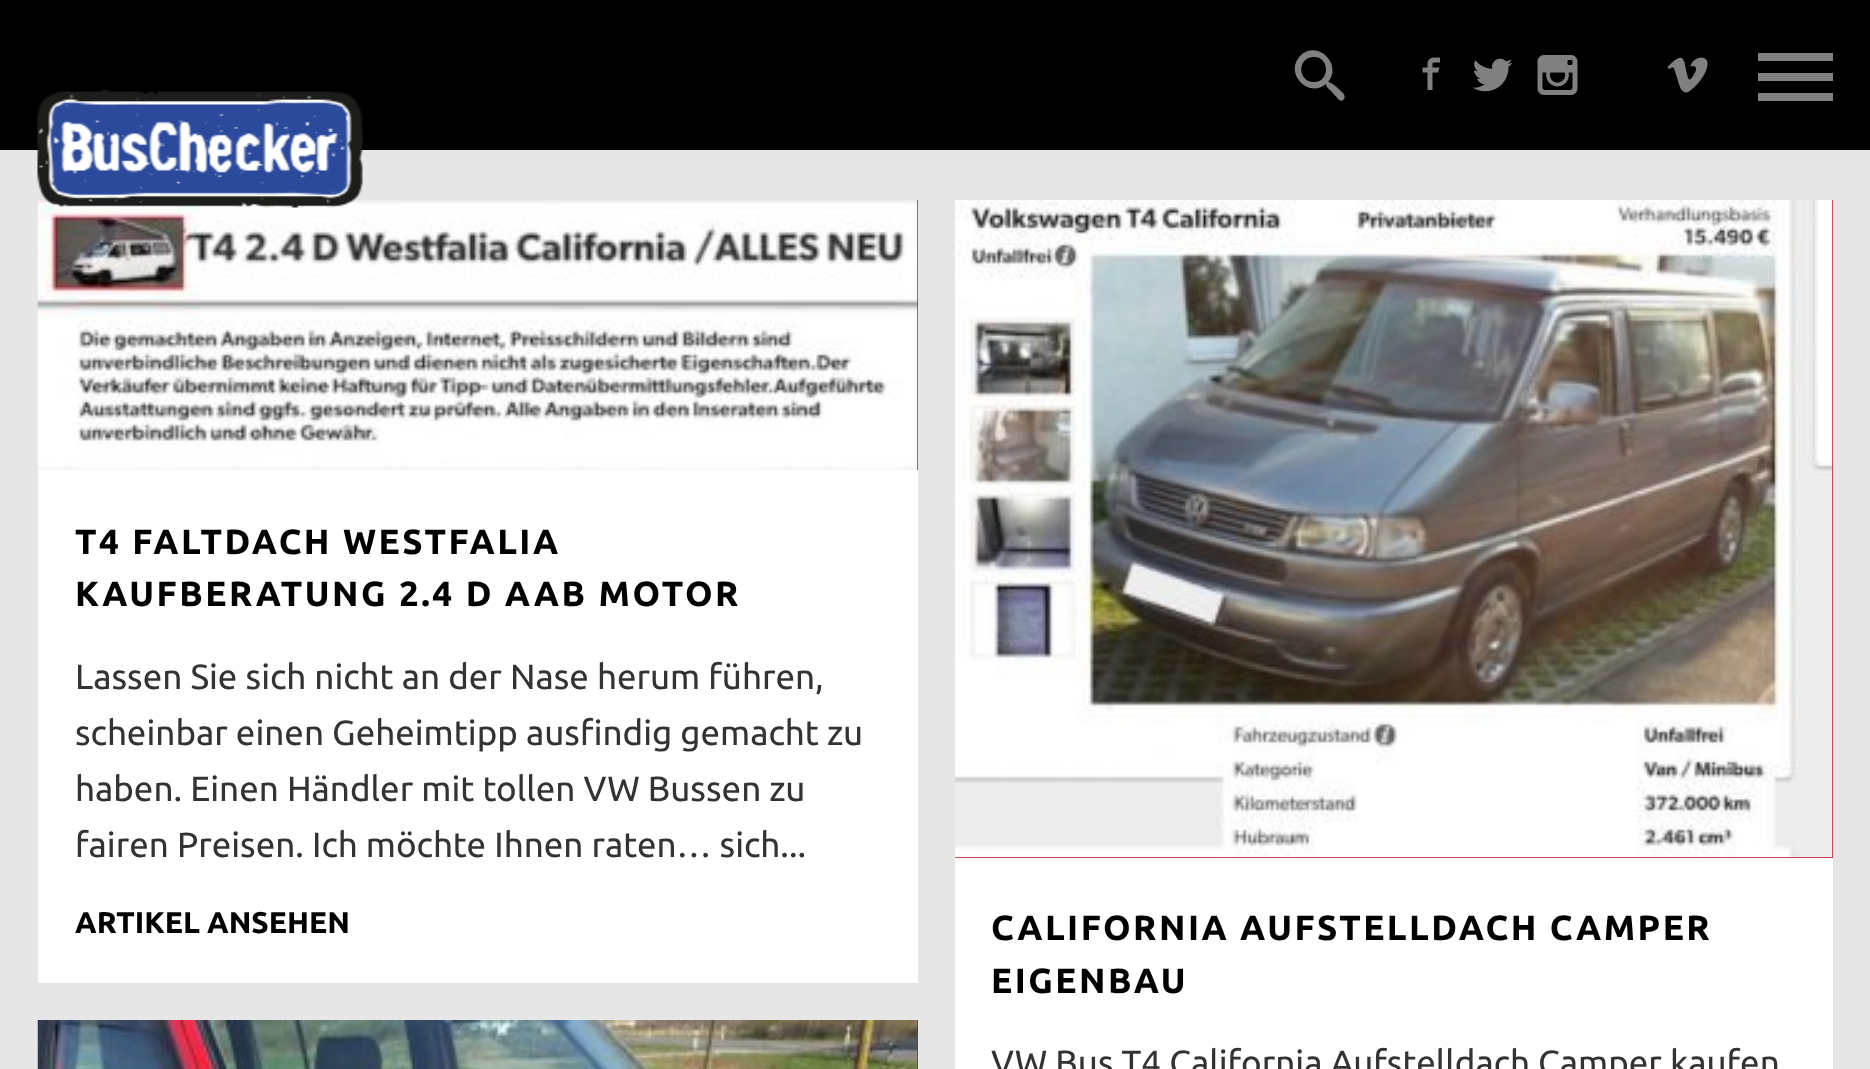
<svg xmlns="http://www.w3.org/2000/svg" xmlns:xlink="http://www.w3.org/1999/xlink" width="1870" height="1069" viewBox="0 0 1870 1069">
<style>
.cls-1{font:bold 35px Ubuntu;letter-spacing:2.5px;fill:#000000}
.cls-2{font:35px Ubuntu;fill:#333333}
.cls-3{font:bold 30px Ubuntu;fill:#000000}
</style>
<rect width="100%" height="100%" fill="#e6e6e6"/>
<rect fill="#000000" x="0" y="0" width="1870" height="150"/>
<path fill="#808080" d="M1343 93C1341 91 1331 81 1328 82C1343 64 1317 39 1300 56C1284 73 1308 99 1326 84C1326 87 1329 89 1331 91L1339 100C1343 103 1347 97 1343 93ZM1314 82C1297 82 1297 57 1314 57C1330 57 1330 82 1314 82Z"/>
<image xlink:href="image0.png" x="1422" y="57" width="18" height="33"/>
<image xlink:href="image1.png" x="1472" y="58" width="41" height="34"/>
<image xlink:href="image2.png" x="1537" y="55" width="41" height="40"/>
<image xlink:href="image3.png" x="1667" y="57" width="41" height="36"/>
<rect fill="#808080" x="1758" y="53" width="75" height="8"/>
<rect fill="#808080" x="1758" y="73" width="75" height="8"/>
<rect fill="#808080" x="1758" y="93" width="75" height="8"/>
<rect fill="#be1522" x="917" y="200" width="1" height="270"/>
<image xlink:href="image5.png" x="37" y="200" width="881" height="270"/>
<image xlink:href="image4.png" x="37" y="90" width="326" height="118"/>
<rect fill="#ffffff" x="38" y="470" width="880" height="513"/>
<rect fill="#be1522" x="917" y="1020" width="1" height="49"/>
<image xlink:href="image6.png" x="37" y="1020" width="881" height="49"/>
<rect fill="#ffffff" x="955" y="858" width="878" height="211"/>
<rect fill="#be1522" x="955" y="200" width="878" height="658"/>
<image xlink:href="image7.png" x="955" y="200" width="878" height="658"/>
<text class="cls-1"><tspan x="75" y="554">T4 FALTDACH WESTFALIA</tspan><tspan x="75" y="606">KAUFBERATUNG 2.4 D AAB MOTOR</tspan></text>
<text class="cls-2"><tspan x="75" y="689">Lassen Sie sich nicht an der Nase herum führen,</tspan><tspan x="75" y="745">scheinbar einen Geheimtipp ausfindig gemacht zu</tspan><tspan x="75" y="801">haben. Einen Händler mit tollen VW Bussen zu</tspan><tspan x="75" y="857">fairen Preisen. Ich möchte Ihnen raten… sich...</tspan></text>
<text class="cls-3" x="75" y="933">ARTIKEL ANSEHEN</text>
<text class="cls-1"><tspan x="991" y="940">CALIFORNIA AUFSTELLDACH CAMPER</tspan><tspan x="991" y="993">EIGENBAU</tspan></text>
<text class="cls-2" x="991" y="1075">VW Bus T4 California Aufstelldach Camper kaufen</text>
</svg>
